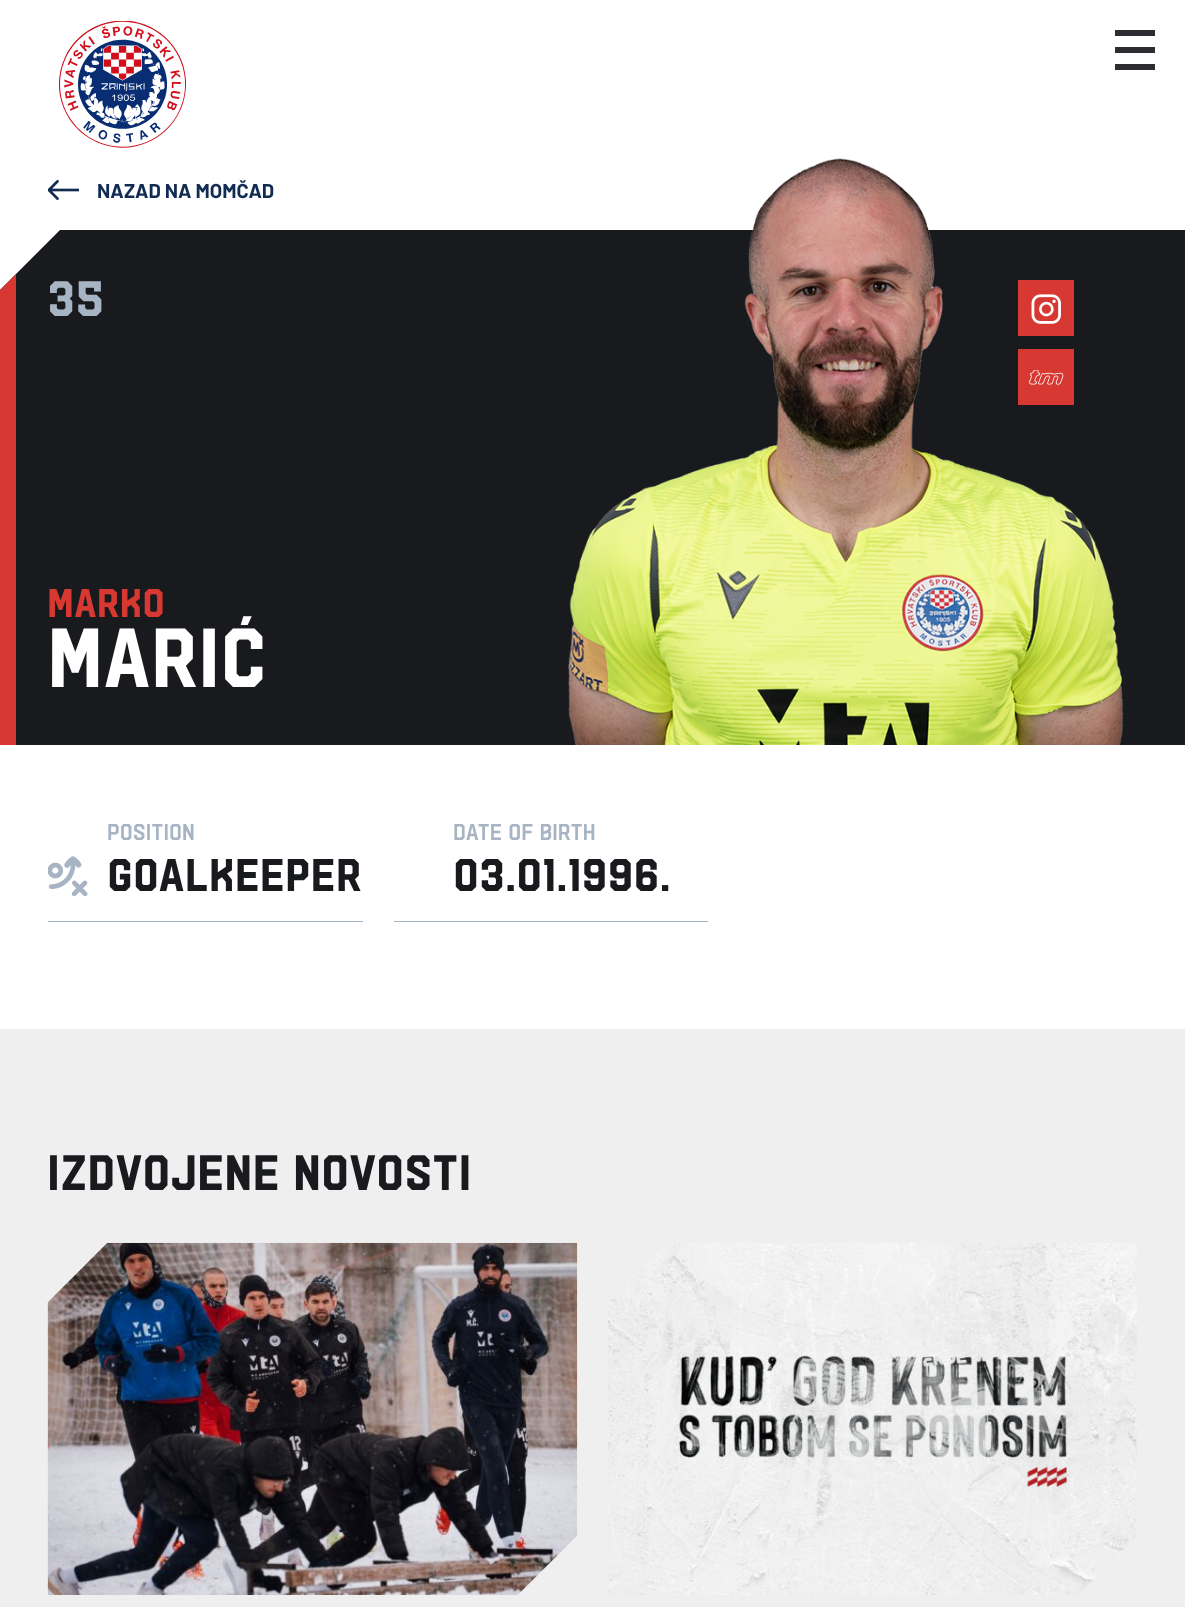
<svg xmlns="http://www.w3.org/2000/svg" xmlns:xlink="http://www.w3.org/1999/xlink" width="1185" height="1607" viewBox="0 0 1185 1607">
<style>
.cls-1{font:bold 20px Barlow;fill:#122b52}
.cls-2{font:600 43.5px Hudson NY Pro;fill:#a7b4c4}
.cls-3{font:600 35px Hudson NY Pro;fill:#d73831}
.cls-4{font:600 73px Hudson NY Pro;fill:#ffffff}
.cls-5{font:20px Hudson NY Pro;fill:#a7b4c4}
.cls-6{font:600 40px Hudson NY Pro;fill:#191a1e}
.cls-7{font:600 43.5px Hudson NY Pro;fill:#191a1e}
</style>
<rect width="100%" height="100%" fill="#ffffff"/>
<image xlink:href="image0.png" x="59" y="21" width="127" height="127"/>
<rect fill="#2c2d31" x="1115" y="30" width="40" height="6"/>
<rect fill="#2c2d31" x="1115" y="47" width="40" height="6"/>
<rect fill="#2c2d31" x="1115" y="64" width="40" height="6"/>
<image xlink:href="image1.png" x="48" y="180" width="31" height="20"/>
<path fill="#191a1e" d="M60 230L0 290V745H1185V230Z"/>
<path fill="#d73831" d="M0 290V745H16V274Z"/>
<image xlink:href="image2.png" x="568" y="158" width="556" height="587"/>
<rect fill="#d73831" x="1018" y="280" width="56" height="56"/>
<image xlink:href="image3.png" x="1031" y="294" width="30" height="30"/>
<rect fill="#d73831" x="1018" y="349" width="56" height="56"/>
<image xlink:href="image4.png" x="1029" y="370" width="35" height="15"/>
<rect fill="#a7b4c4" x="48" y="921" width="315" height="1"/>
<image xlink:href="image5.png" x="48" y="856" width="40" height="40"/>
<rect fill="#a7b4c4" x="394" y="921" width="314" height="1"/>
<rect fill="#efefef" x="0" y="1029" width="1185" height="578"/>
<image xlink:href="image6.png" x="47" y="1242" width="531" height="353"/>
<image xlink:href="image7.png" x="608" y="1243" width="529" height="352"/>
<text class="cls-1" x="97" y="198">NAZAD NA MOMČAD</text>
<text class="cls-2" x="47" y="316">35</text>
<text class="cls-3" x="47" y="617">MARKO</text>
<text class="cls-4" x="47" y="687">MARIĆ</text>
<text class="cls-5" x="107" y="840">POSITION</text>
<text class="cls-6" x="107" y="891">GOALKEEPER</text>
<text class="cls-5" x="453" y="840">DATE OF BIRTH</text>
<text class="cls-6" x="453" y="891">03.01.1996.</text>
<text class="cls-7" x="47" y="1190">IZDVOJENE NOVOSTI</text>
</svg>
